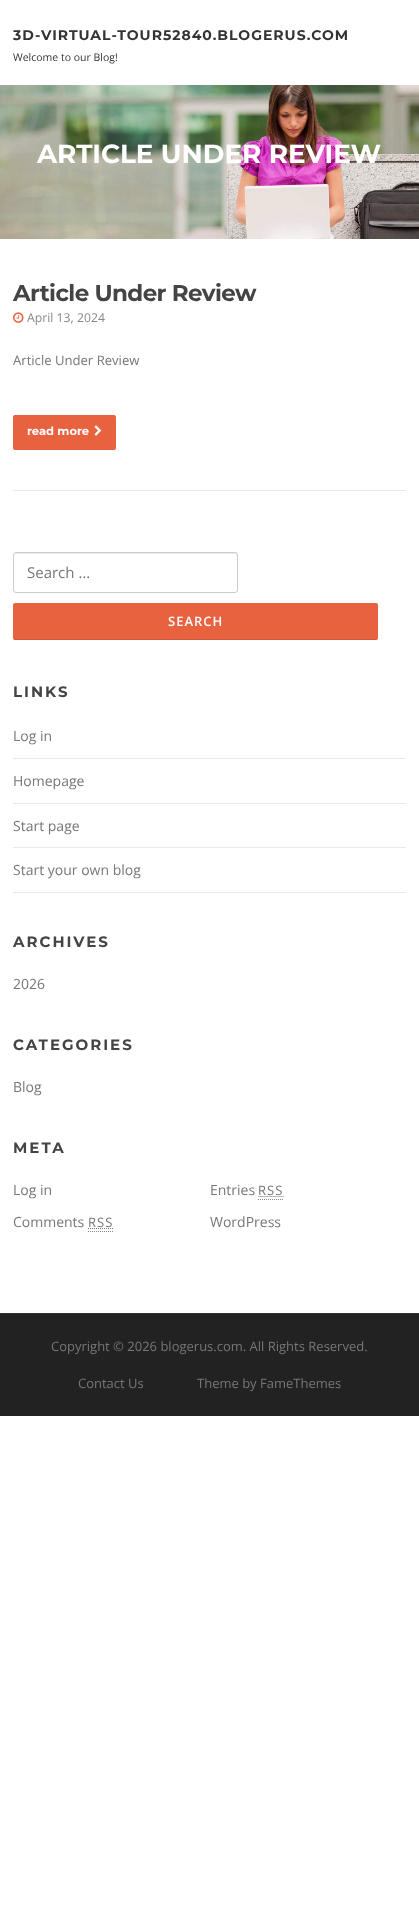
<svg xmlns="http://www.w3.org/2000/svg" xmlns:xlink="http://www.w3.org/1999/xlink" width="419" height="1931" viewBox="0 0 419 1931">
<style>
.cls-1{font:bold 14px Montserrat;letter-spacing:1px;fill:#333333}
.cls-2{font:10.5px Open Sans;fill:#333333}
.cls-3{font:bold 26.25px Montserrat;fill:#ffffff}
.cls-4{font:bold 23px Montserrat;letter-spacing:-0.6px;fill:#444444}
.cls-5{font:12.25px Open Sans;fill:#888888}
.cls-6{font:13.1px Open Sans;fill:#777777}
.cls-7{font:bold 11.5px Montserrat;fill:#ffffff}
.cls-8{font:15px Open Sans;fill:#777777}
.cls-9{font:600 13px Open Sans;letter-spacing:1px;fill:#ffffff}
.cls-10{font:bold 15px Montserrat;letter-spacing:2px;fill:#444444}
.cls-11{font:14px Open Sans;fill:#777777}
.cls-12{font:13px Open Sans;letter-spacing:1px;fill:#777777}
.cls-13{font:13px Open Sans;fill:#777777}
</style>
<rect width="100%" height="100%" fill="#ffffff"/>
<image xlink:href="image0.png" x="0" y="85" width="419" height="154"/>
<image xlink:href="image1.png" x="13" y="312" width="11" height="11"/>
<rect fill="#e86240" x="13" y="415" width="103" height="35" rx="2"/>
<image xlink:href="image2.png" x="94" y="425" width="8" height="11"/>
<rect fill="#e9e9e9" x="13" y="490" width="393" height="1"/>
<path fill="#ebebeb" d="M16 554H235C236 554 237 555 237 556C237 555 237 553 235 553H16L15 554L14 556C14 555 15 554 16 554Z"/>
<rect fill="none" stroke="#cccccc" x="13.5" y="552.5" width="224" height="40" rx="2.5"/>
<rect fill="#e86240" x="13" y="603" width="365" height="37" rx="2"/>
<path fill="#000000" fill-opacity="0.1" d="M13 637C13 638 13 640 15 640H376C378 640 378 638 378 637C378 638 377 639 376 639H15C14 639 13 638 13 637Z"/>
<rect fill="#e9e9e9" x="13" y="758" width="393" height="1"/>
<rect fill="#e9e9e9" x="13" y="803" width="393" height="1"/>
<rect fill="#e9e9e9" x="13" y="847" width="393" height="1"/>
<rect fill="#e9e9e9" x="13" y="892" width="393" height="1"/>
<path fill="none" stroke="#818a91" stroke-dasharray="1 1" d="M258 1199.5H284"/>
<path fill="none" stroke="#777777" stroke-dasharray="1 1" d="M258.5 1196.5H284"/>
<path fill="none" stroke="#818a91" stroke-dasharray="1 1" d="M88 1231.5H114"/>
<path fill="none" stroke="#777777" stroke-dasharray="1 1" d="M88 1228.5H114"/>
<rect fill="#222222" x="0" y="1314" width="419" height="102"/>
<rect fill="#333333" x="0" y="1313" width="419" height="1"/>
<text class="cls-1" x="13" y="40">3D-VIRTUAL-TOUR52840.BLOGERUS.COM</text>
<text class="cls-2" x="13" y="61">Welcome to our Blog!</text>
<text class="cls-3" x="37" y="163">ARTICLE UNDER REVIEW</text>
<text class="cls-4" x="13" y="301">Article Under Review</text>
<text class="cls-5" x="27" y="322">April 13, 2024</text>
<text class="cls-6" x="13" y="365">Article Under Review</text>
<text class="cls-7" x="27" y="435">read more</text>
<text class="cls-8" x="27" y="578">Search …</text>
<text class="cls-9" x="168" y="626">SEARCH</text>
<text class="cls-10" x="13" y="697">LINKS</text>
<text class="cls-11" x="13" y="741">Log in</text>
<text class="cls-11" x="13" y="786">Homepage</text>
<text class="cls-11" x="13" y="831">Start page</text>
<text class="cls-11" x="13" y="875">Start your own blog</text>
<text class="cls-10" x="13" y="947">ARCHIVES</text>
<text class="cls-11" x="13" y="989">2026</text>
<text class="cls-10" x="13" y="1050">CATEGORIES</text>
<text class="cls-11" x="13" y="1092">Blog</text>
<text class="cls-10" x="13" y="1153">META</text>
<text class="cls-11" x="13" y="1195">Log in</text>
<text class="cls-11" x="210" y="1195">Entries</text>
<text class="cls-12" x="258" y="1195">RSS</text>
<text class="cls-11" x="13" y="1227">Comments</text>
<text class="cls-12" x="88" y="1227">RSS</text>
<text class="cls-11" x="210" y="1227">WordPress</text>
<text class="cls-13" x="51" y="1351">Copyright © 2026 blogerus.com. All Rights Reserved.</text>
<text class="cls-13" x="78" y="1388">Contact Us</text>
<text class="cls-13" x="197" y="1388">Theme by FameThemes</text>
</svg>
